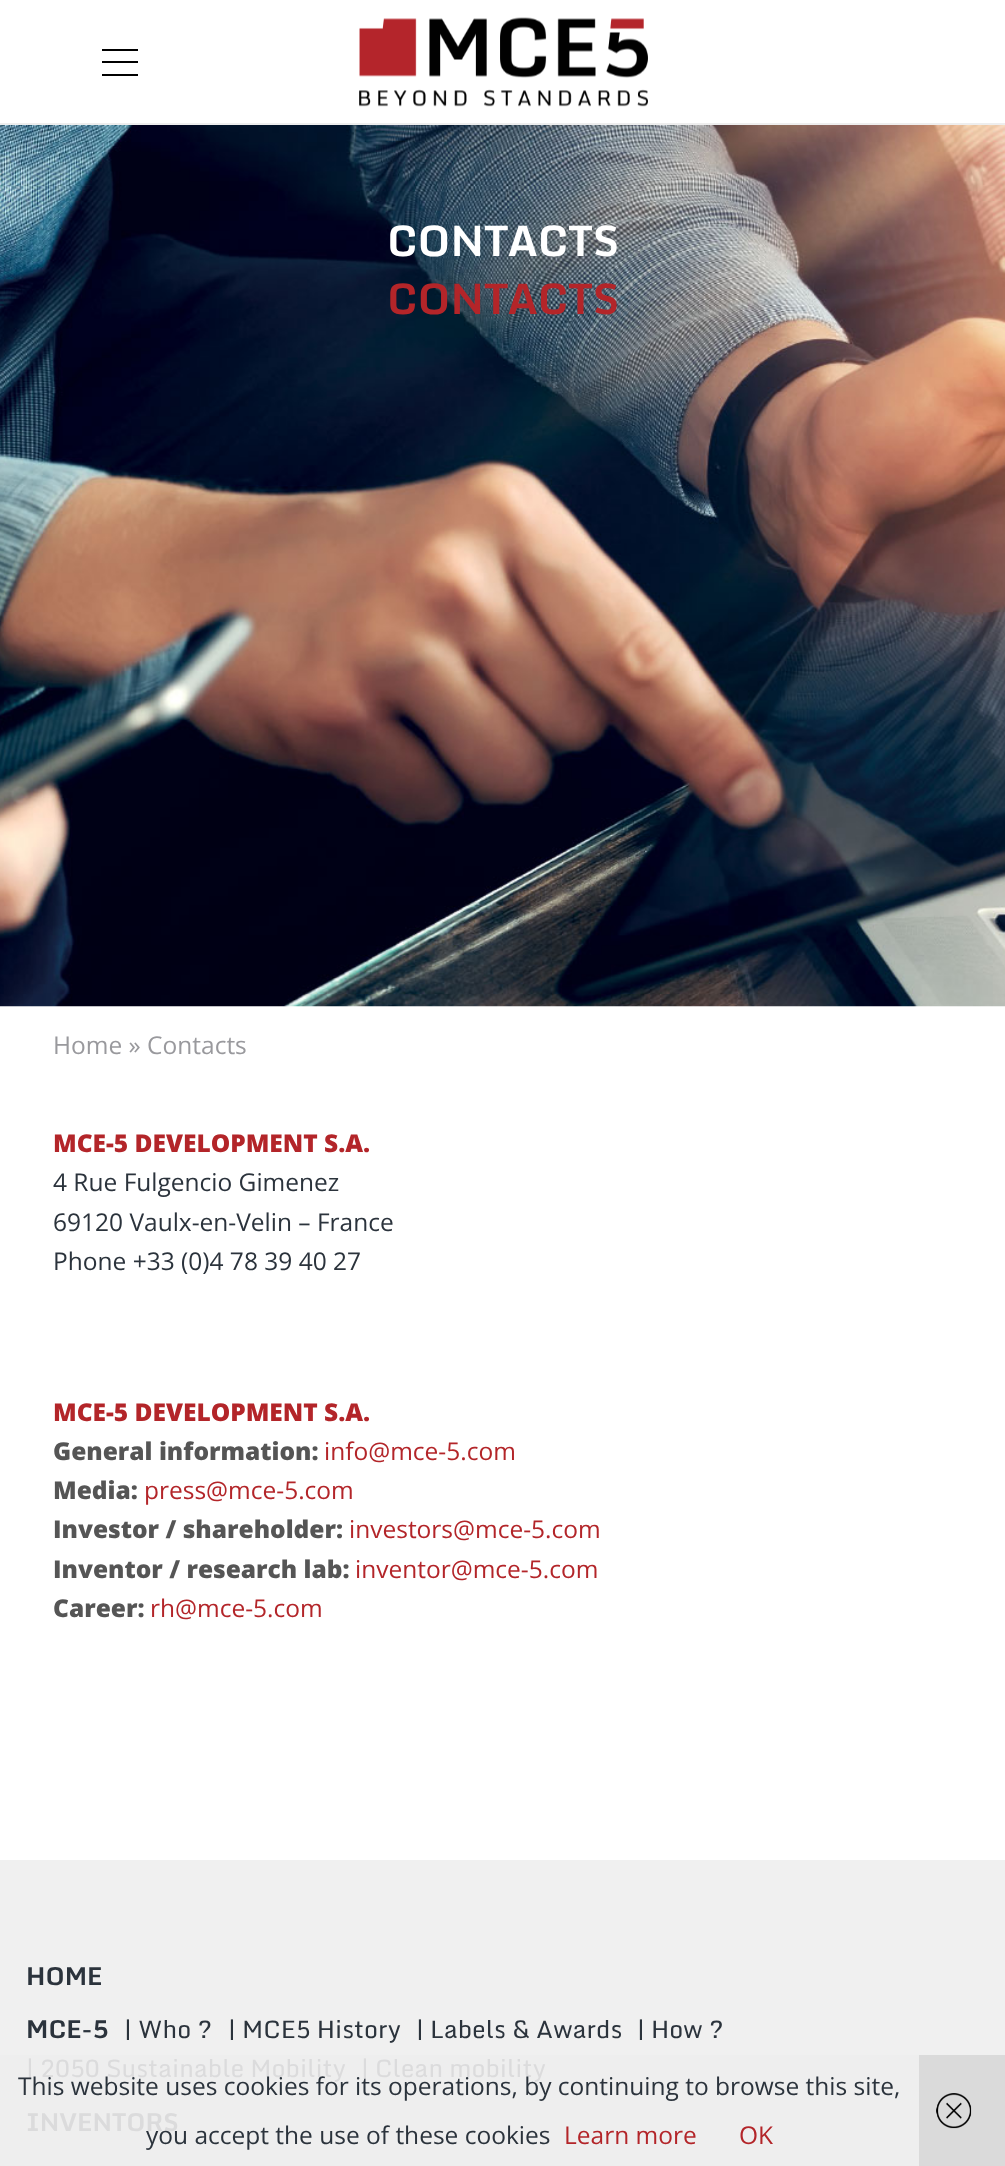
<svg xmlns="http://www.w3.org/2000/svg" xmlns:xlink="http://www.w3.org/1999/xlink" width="1005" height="2166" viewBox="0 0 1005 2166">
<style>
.cls-1{font:bold 42px Monda;fill:#ffffff}
.cls-2{font:bold 42px Monda;fill:#b32529}
.cls-3{font:24.5px Open Sans;fill:#99999d}
.cls-4{font:800 24.5px Open Sans;fill:#b32529}
.cls-5{font:24.5px Open Sans;fill:#2b333c}
.cls-6{font:800 24.5px Open Sans;fill:#555555}
.cls-7{font:24.5px Open Sans;fill:#b32529}
.cls-8{font:bold 24.5px Monda;fill:#2b333c}
.cls-9{font:24.5px Monda;fill:#2b333c}
.cls-10{font:24.5px Monda;fill:#dbdbdc}
.cls-11{font:bold 24.5px Monda;fill:#dbdbdc}
</style>
<rect width="100%" height="100%" fill="#ffffff"/>
<rect fill="#eeeeee" x="0" y="123" width="1005" height="2"/>
<rect fill="#000000" x="102" y="49" width="36" height="2"/>
<rect fill="#000000" x="102" y="61" width="36" height="2"/>
<rect fill="#000000" x="102" y="74" width="36" height="2"/>
<image xlink:href="image0.png" x="359" y="17" width="289" height="90"/>
<image xlink:href="image1.png" x="0" y="125" width="1005" height="882"/>
<rect fill="#f0f0f0" x="0" y="1860" width="1005" height="195"/>
<rect fill="#eeeeee" x="0" y="2055" width="919" height="111"/>
<rect fill="#dadada" x="919" y="2055" width="86" height="111"/>
<image xlink:href="image2.png" x="936" y="2093" width="36" height="36"/>
<text class="cls-1" x="387" y="256">CONTACTS</text>
<text class="cls-2" x="387" y="314">CONTACTS</text>
<text class="cls-3" x="53" y="1054">Home » Contacts</text>
<text class="cls-4" x="53" y="1152">MCE-5 DEVELOPMENT S.A.</text>
<text class="cls-5"><tspan x="53" y="1191">4 Rue Fulgencio Gimenez</tspan><tspan x="53" y="1231">69120 Vaulx-en-Velin – France</tspan><tspan x="53" y="1270">Phone +33 (0)4 78 39 40 27</tspan></text>
<text class="cls-4" x="53" y="1421">MCE-5 DEVELOPMENT S.A.</text>
<text class="cls-6" x="53" y="1460">General information:</text>
<text class="cls-7" x="324" y="1460">info@mce-5.com</text>
<text class="cls-6" x="53" y="1499">Media:</text>
<text class="cls-7" x="144" y="1499">press@mce-5.com</text>
<text class="cls-6" x="53" y="1538">Investor / shareholder:</text>
<text class="cls-7" x="349" y="1538">investors@mce-5.com</text>
<text class="cls-6" x="53" y="1578">Inventor / research lab:</text>
<text class="cls-7" x="355" y="1578">inventor@mce-5.com</text>
<text class="cls-6" x="53" y="1617">Career:</text>
<text class="cls-7" x="150" y="1617">rh@mce-5.com</text>
<text class="cls-8" x="26" y="1985">HOME</text>
<text class="cls-9" x="124" y="2038">| Who ?</text>
<text class="cls-9" x="228" y="2038">| MCE5 History</text>
<text class="cls-9" x="416" y="2038">| Labels &amp; Awards</text>
<text class="cls-9" x="637" y="2038">| How ?</text>
<text class="cls-10" x="26" y="2077">| 2050 Sustainable Mobility</text>
<text class="cls-10" x="361" y="2077">| Clean mobility</text>
<text class="cls-8" x="26" y="2038">MCE-5</text>
<text class="cls-11" x="26" y="2131">INVENTORS</text>
<text class="cls-5" x="18" y="2095">This website uses cookies for its operations, by continuing to browse this site,</text>
<text class="cls-5" x="146" y="2144">you accept the use of these cookies</text>
<text class="cls-7" x="564" y="2144">Learn more</text>
<text class="cls-7" x="739" y="2144">OK</text>
</svg>
